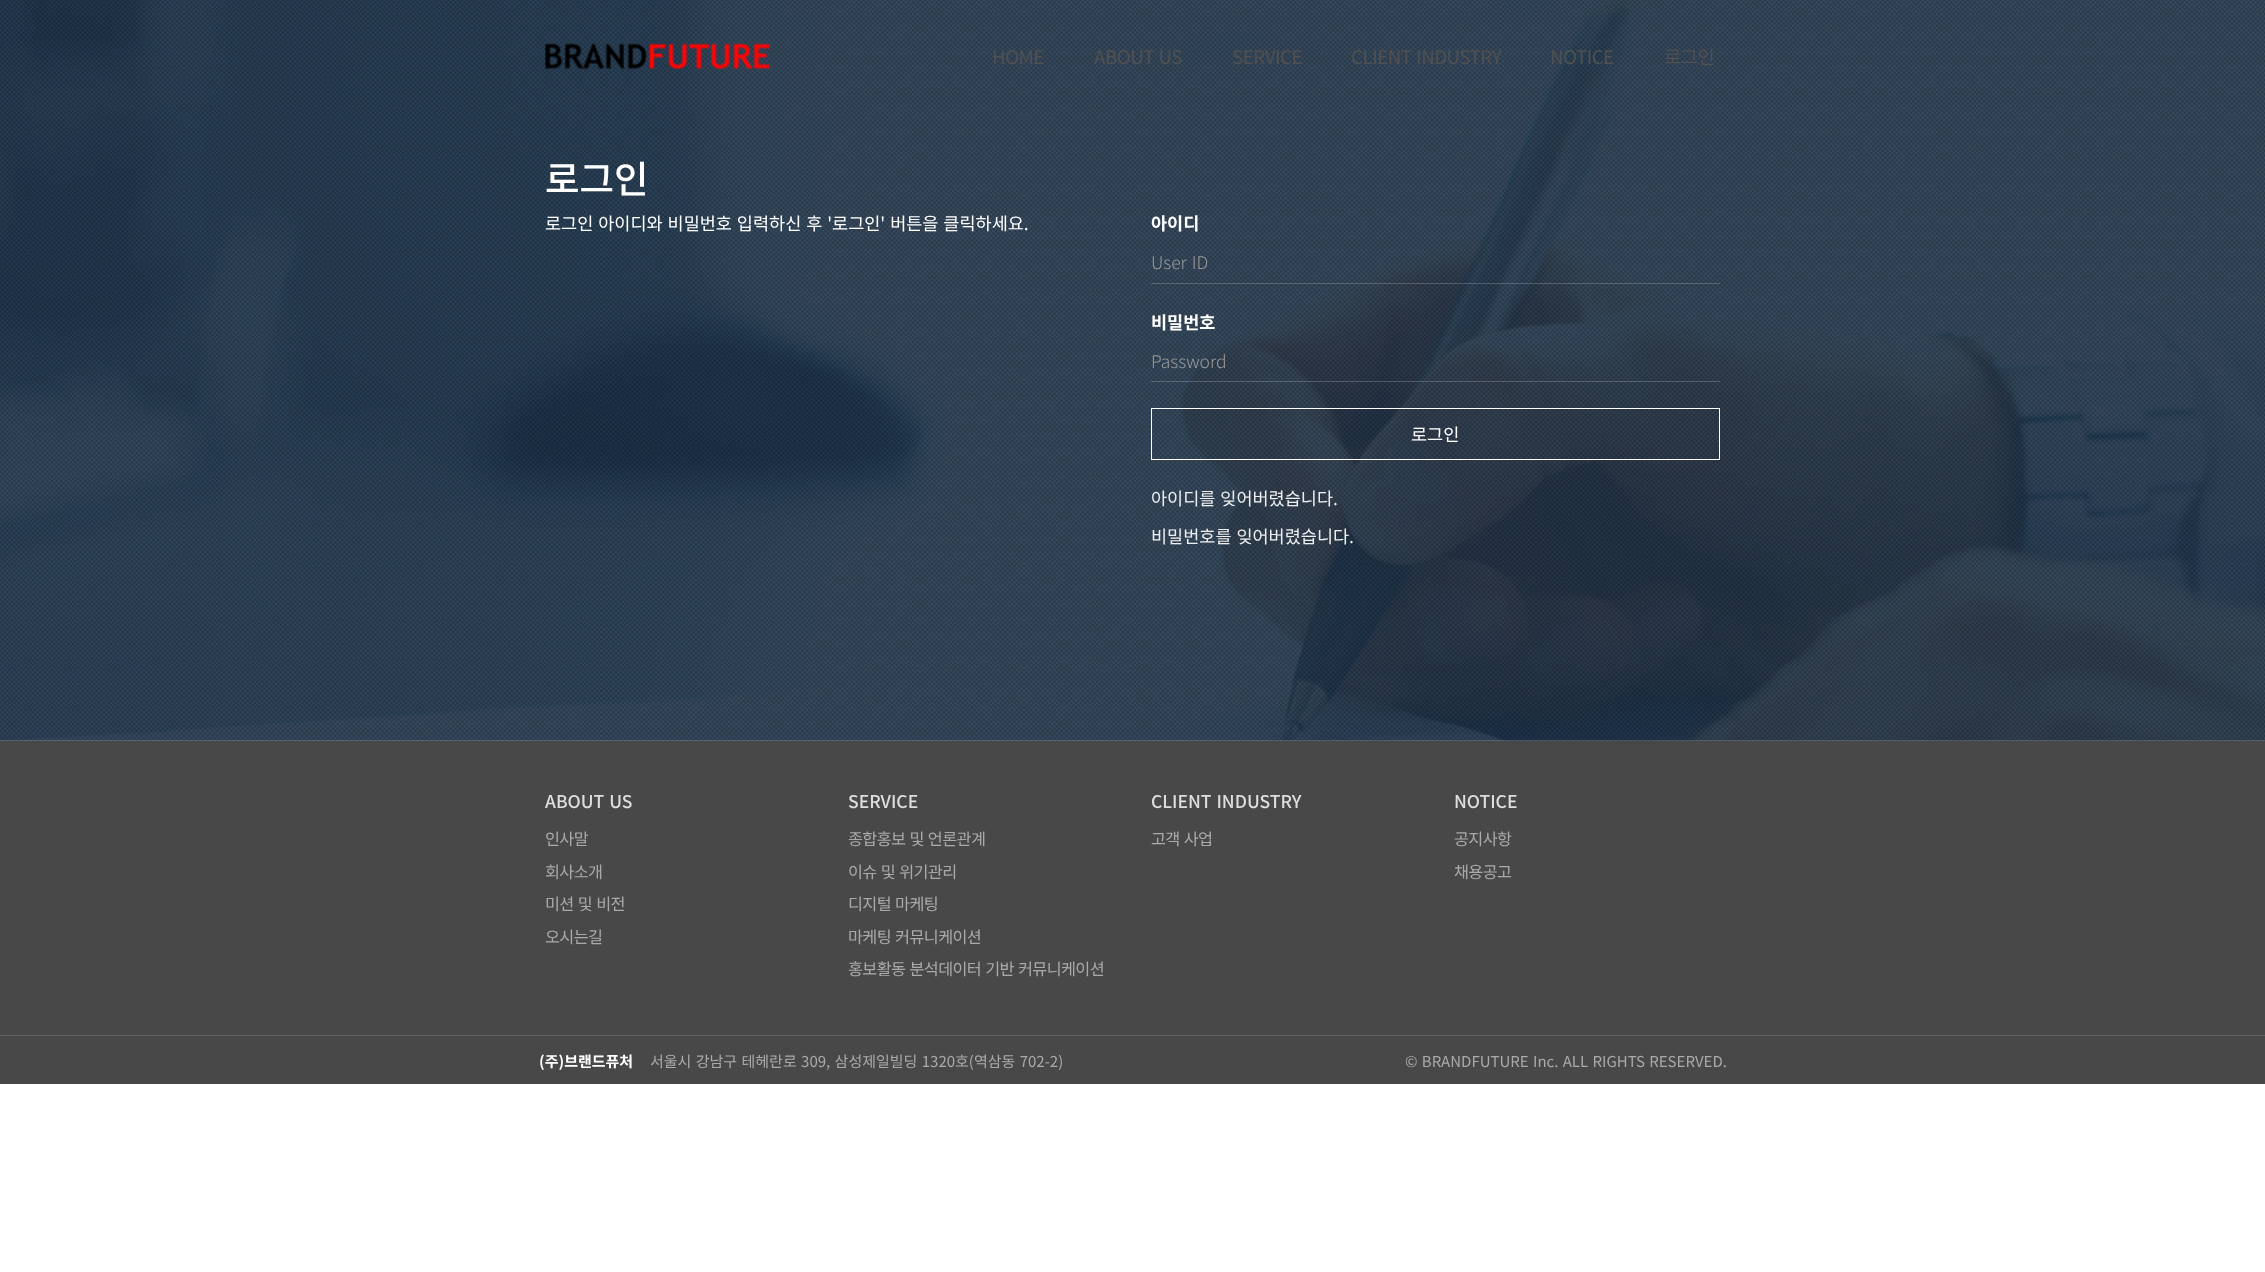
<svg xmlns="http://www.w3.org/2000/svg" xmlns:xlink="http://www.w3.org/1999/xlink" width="2265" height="1272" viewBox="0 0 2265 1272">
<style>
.cls-1{font:18.75px Noto Sans KR;letter-spacing:-0.5px;fill:#515151}
.cls-2{font:500 37.5px Noto Sans KR;fill:#ffffff}
.cls-3{font:17.5px Noto Sans KR;fill:#ffffff}
.cls-4{font:bold 17.5px Noto Sans KR;fill:#ffffff}
.cls-5{font:300 17.5px Noto Sans KR;fill:#999999}
.cls-6{font:17.5px Noto Sans KR;fill:#eeeeee}
.cls-7{font:500 17.5px Noto Sans KR;fill:#dedede}
.cls-8{font:16.25px Noto Sans KR;letter-spacing:-0.6px;fill:#aaaaaa}
.cls-9{font:bold 15px Noto Sans KR;fill:#ffffff}
.cls-10{font:15px Noto Sans KR;fill:#aaaaaa}
</style>
<rect width="100%" height="100%" fill="#ffffff"/>
<image xlink:href="image1.png" x="0" y="0" width="2265" height="741"/>
<image xlink:href="image0.png" x="545" y="43" width="225" height="26"/>
<rect fill="#ffffff" fill-opacity="0.2" x="1151" y="283" width="569" height="1"/>
<rect fill="#ffffff" fill-opacity="0.2" x="1151" y="381" width="569" height="1"/>
<rect fill="none" stroke="#ffffff" x="1151.5" y="408.5" width="568" height="51"/>
<rect fill="#484848" x="0" y="741" width="2265" height="343"/>
<rect fill="#636363" x="0" y="1035" width="2265" height="1"/>
<text class="cls-1" x="992" y="64">HOME</text>
<text class="cls-1" x="1094" y="64" word-spacing="1">ABOUT US</text>
<text class="cls-1" x="1232" y="64">SERVICE</text>
<text class="cls-1" x="1351" y="64" word-spacing="1">CLIENT INDUSTRY</text>
<text class="cls-1" x="1550" y="64">NOTICE</text>
<text class="cls-1" x="1664" y="64">로그인</text>
<text class="cls-2" x="545" y="193">로그인</text>
<text class="cls-3" x="545" y="230" word-spacing="1">로그인 아이디와 비밀번호 입력하신 후 '로그인' 버튼을 클릭하세요.</text>
<text class="cls-4" x="1151" y="230">아이디</text>
<text class="cls-5" x="1151" y="269" word-spacing="1">User ID</text>
<text class="cls-4" x="1151" y="329">비밀번호</text>
<text class="cls-5" x="1151" y="368">Password</text>
<text class="cls-3" x="1411" y="441">로그인</text>
<text class="cls-6" x="1151" y="505" word-spacing="1">아이디를 잊어버렸습니다.</text>
<text class="cls-6" x="1151" y="543" word-spacing="1">비밀번호를 잊어버렸습니다.</text>
<text class="cls-7" x="545" y="808" word-spacing="1">ABOUT US</text>
<text class="cls-8" x="545" y="845">인사말</text>
<text class="cls-8"><tspan x="545" y="878">회사소개</tspan><tspan x="545" y="910" word-spacing="1">미션 및 비전</tspan></text>
<text class="cls-8" x="545" y="943">오시는길</text>
<text class="cls-7" x="848" y="808">SERVICE</text>
<text class="cls-8" x="848" y="845" word-spacing="1">종합홍보 및 언론관계</text>
<text class="cls-8"><tspan x="848" y="878" word-spacing="1">이슈 및 위기관리</tspan><tspan x="848" y="910" word-spacing="1">디지털 마케팅</tspan></text>
<text class="cls-8"><tspan x="848" y="943" word-spacing="1">마케팅 커뮤니케이션</tspan><tspan x="848" y="975" word-spacing="1">홍보활동 분석데이터 기반 커뮤니케이션</tspan></text>
<text class="cls-7" x="1151" y="808" word-spacing="1">CLIENT INDUSTRY</text>
<text class="cls-8" x="1151" y="845" word-spacing="1">고객 사업</text>
<text class="cls-7" x="1454" y="808">NOTICE</text>
<text class="cls-8" x="1454" y="845">공지사항</text>
<text class="cls-8" x="1454" y="878">채용공고</text>
<text class="cls-9" x="539" y="1067">(주)브랜드퓨처</text>
<text class="cls-10" x="650" y="1067" word-spacing="1">서울시 강남구 테헤란로 309, 삼성제일빌딩 1320호(역삼동 702-2)</text>
<text class="cls-10" x="1405" y="1067" word-spacing="1">© BRANDFUTURE Inc. ALL RIGHTS RESERVED.</text>
</svg>
